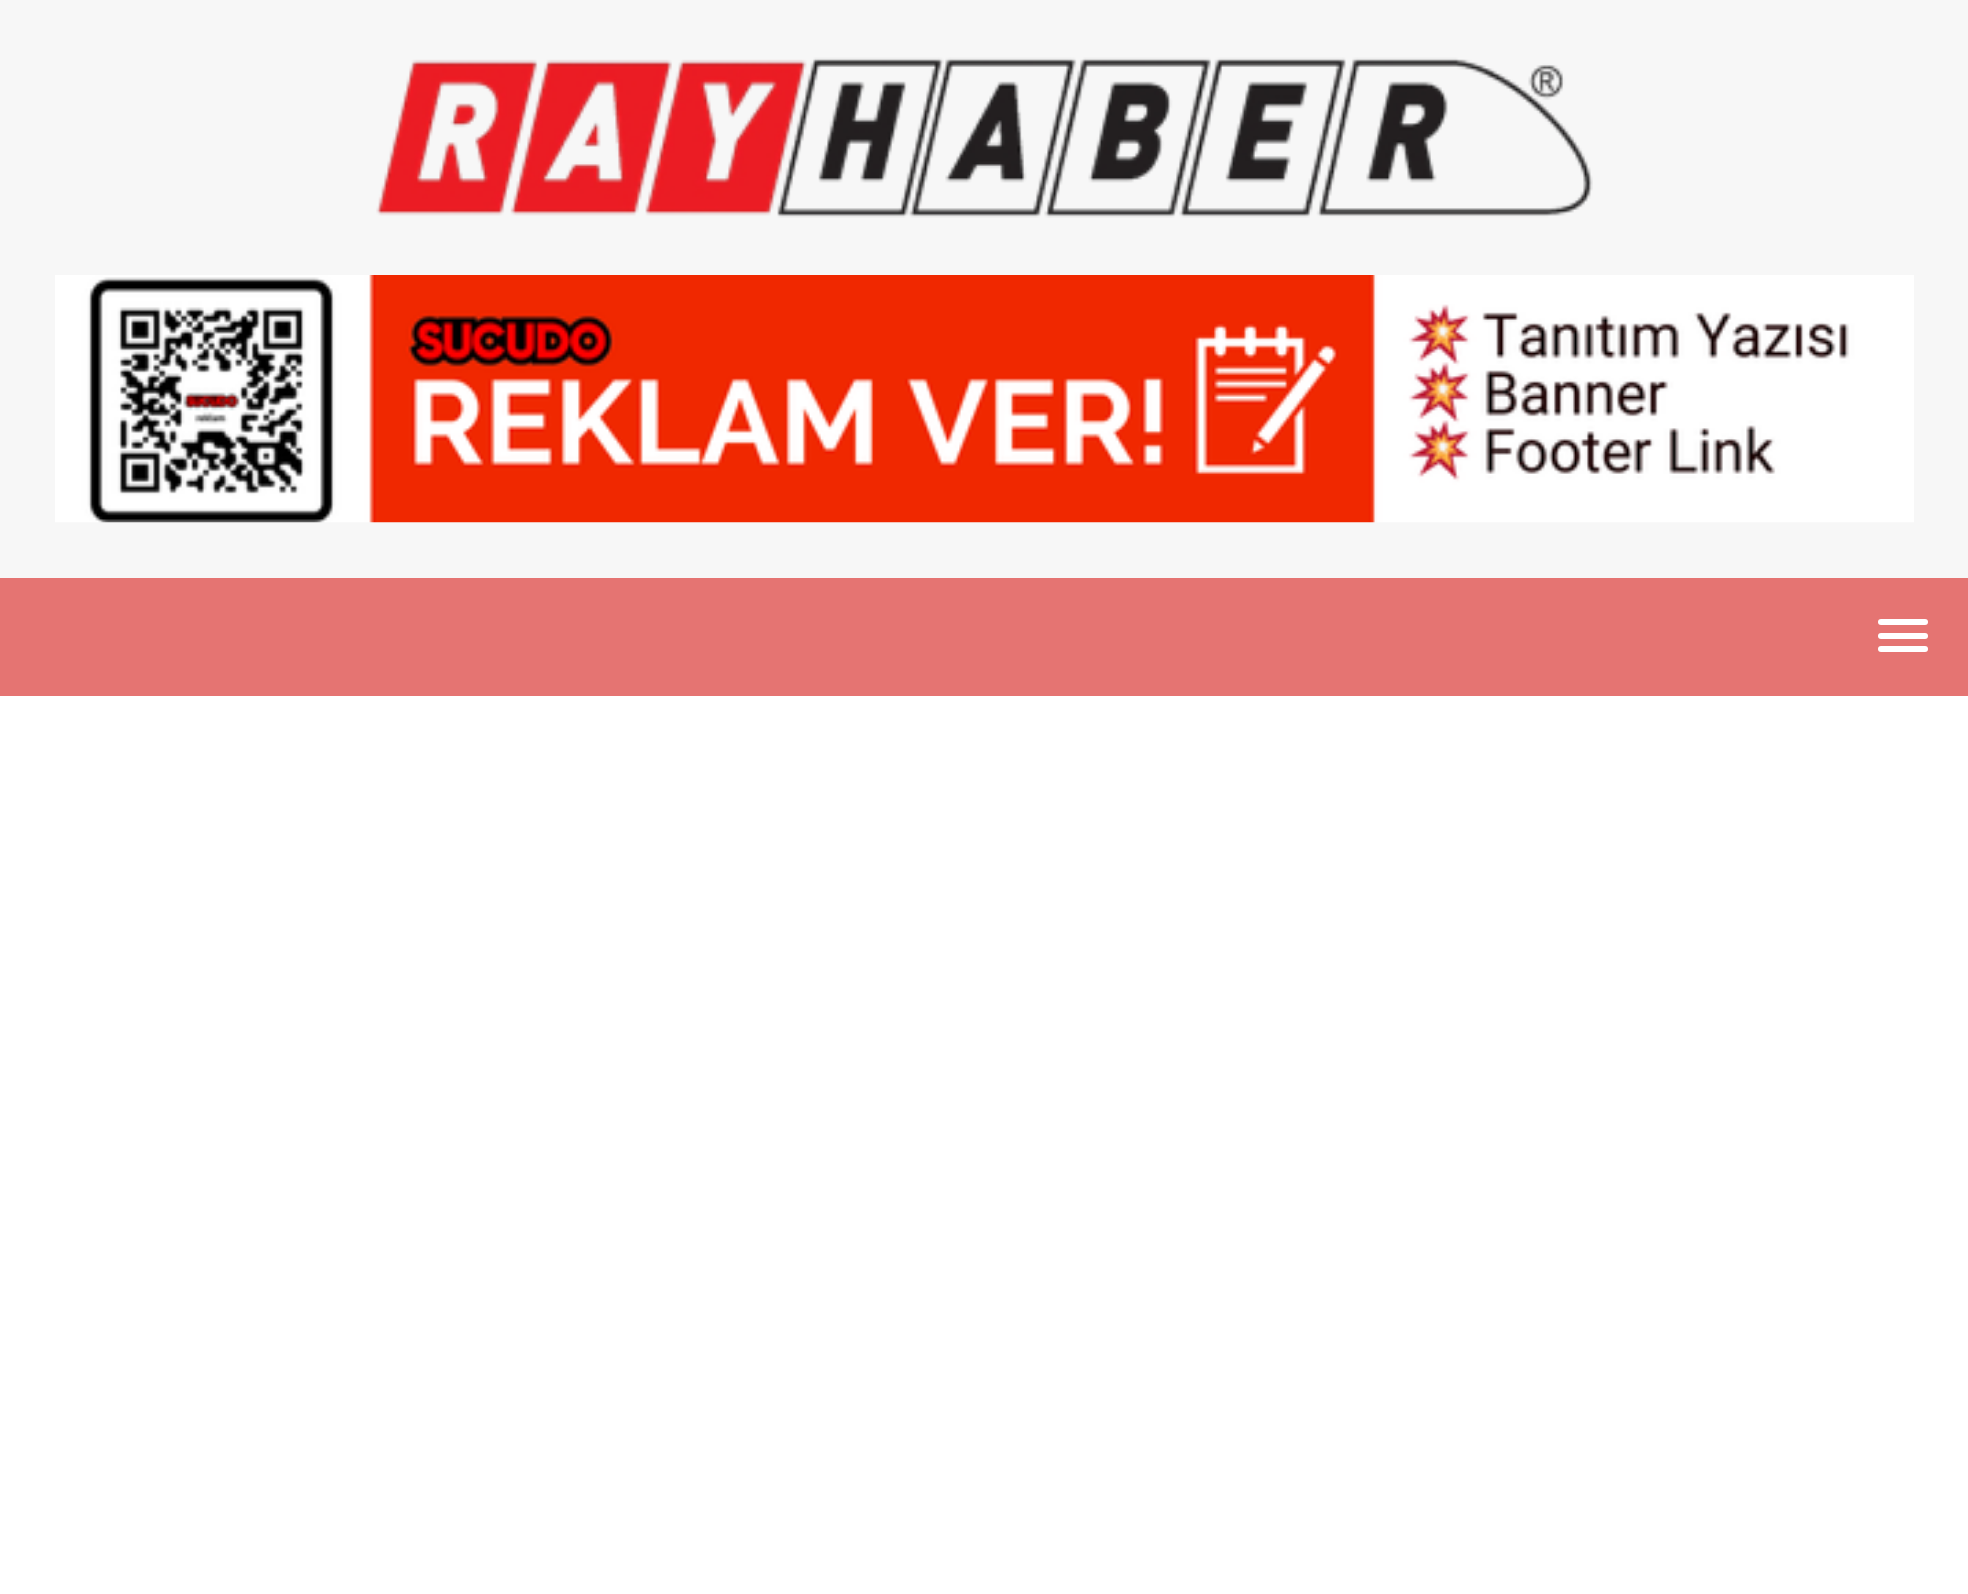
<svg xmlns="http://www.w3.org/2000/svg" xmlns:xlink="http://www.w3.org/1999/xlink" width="1968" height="1594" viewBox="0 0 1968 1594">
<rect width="100%" height="100%" fill="#f7f7f7"/>
<image xlink:href="image0.png" x="376" y="57" width="1217" height="161"/>
<image xlink:href="image1.png" x="55" y="275" width="1859" height="248"/>
<rect fill="#e57472" x="0" y="578" width="1968" height="118"/>
<rect fill="#ffffff" x="1878" y="619" width="50" height="6" rx="3"/>
<rect fill="#ffffff" x="1878" y="633" width="50" height="6" rx="3"/>
<rect fill="#ffffff" x="1878" y="646" width="50" height="6" rx="3"/>
<rect fill="#ffffff" x="0" y="696" width="1968" height="898"/>
</svg>
